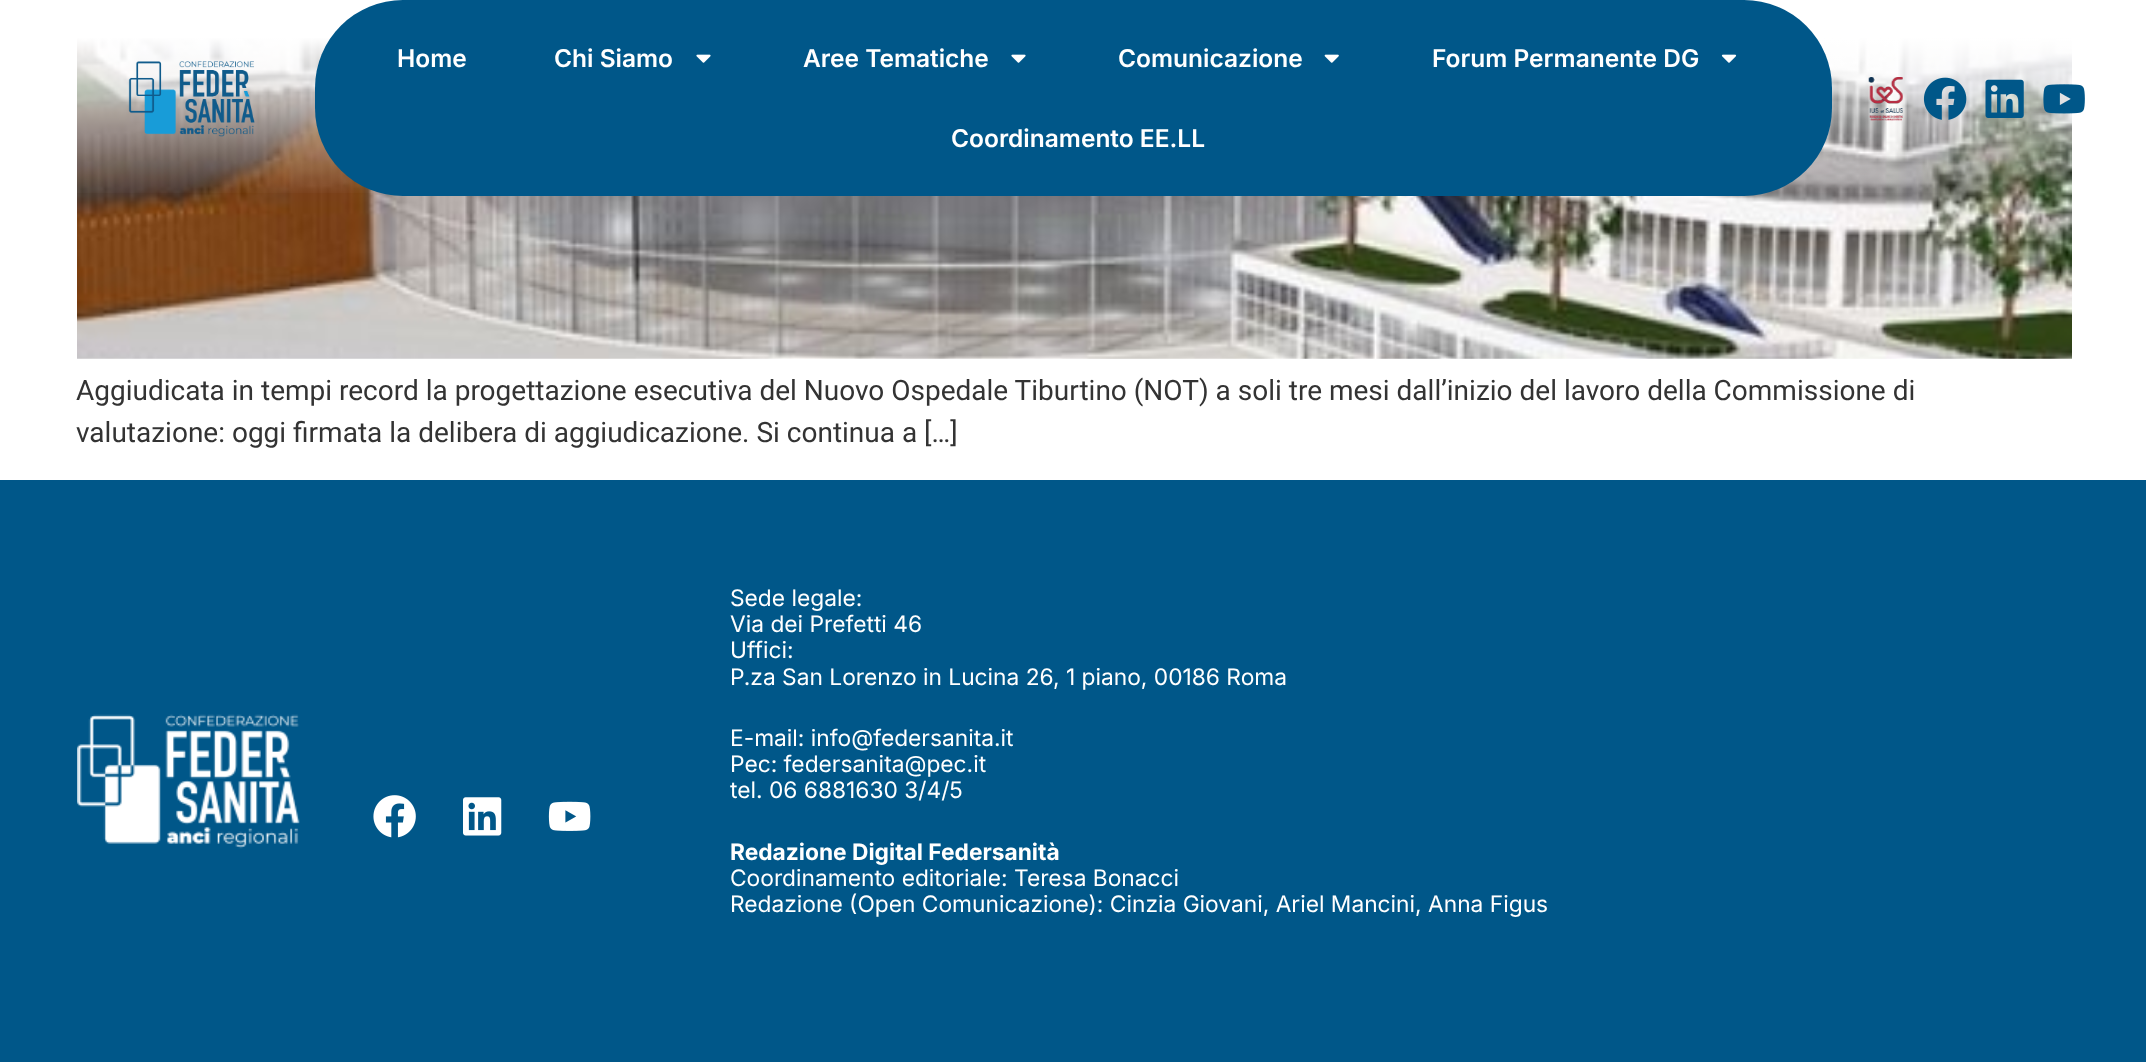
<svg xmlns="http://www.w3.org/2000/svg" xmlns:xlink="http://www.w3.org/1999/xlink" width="2146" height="1062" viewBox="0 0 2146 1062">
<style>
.cls-1{font:600 24.5px Inter;fill:#ffffff}
.cls-2{font:28px Roboto;fill:#333333}
.cls-3{font:22.75px Inter;fill:#ffffff}
.cls-4{font:bold 22.75px Inter;fill:#ffffff}
</style>
<defs>
<linearGradient id="g1" gradientUnits="userSpaceOnUse" x1="1074" y1="0" x2="1074" y2="196"><stop offset="0.19" stop-color="#ffffff"/><stop offset="1" stop-color="#ffffff" stop-opacity="0"/></linearGradient>
</defs>
<rect width="100%" height="100%" fill="#ffffff"/>
<image xlink:href="image8.png" x="77" y="38" width="1995" height="321"/>
<rect fill="url(#g1)" x="77" y="38" width="1995" height="155"/>
<image xlink:href="image0.png" x="128" y="61" width="127" height="76"/>
<rect fill="#005789" x="315" y="0" width="1517" height="196" rx="88"/>
<image xlink:href="image1.png" x="696" y="54" width="15" height="9"/>
<image xlink:href="image1.png" x="1011" y="54" width="15" height="9"/>
<image xlink:href="image2.png" x="1324" y="54" width="15" height="9"/>
<image xlink:href="image3.png" x="1721" y="54" width="16" height="9"/>
<image xlink:href="image4.png" x="1868" y="77" width="35" height="44"/>
<image xlink:href="image5.png" x="1923" y="77" width="44" height="43"/>
<image xlink:href="image6.png" x="1985" y="79" width="39" height="39"/>
<image xlink:href="image7.png" x="2043" y="84" width="42" height="30"/>
<rect fill="#005789" x="0" y="480" width="2146" height="582"/>
<image xlink:href="image9.png" x="77" y="714" width="223" height="135"/>
<image xlink:href="image10.png" x="373" y="795" width="43" height="43"/>
<image xlink:href="image11.png" x="463" y="797" width="39" height="39"/>
<image xlink:href="image12.png" x="548" y="801" width="43" height="30"/>
<text class="cls-1" x="397" y="67">Home</text>
<text class="cls-1" x="554" y="67">Chi Siamo</text>
<text class="cls-1" x="803" y="67">Aree Tematiche</text>
<text class="cls-1" x="1118" y="67">Comunicazione</text>
<text class="cls-1" x="1432" y="67">Forum Permanente DG</text>
<text class="cls-1" x="951" y="147">Coordinamento EE.LL</text>
<text class="cls-2"><tspan x="76" y="400">Aggiudicata in tempi record la progettazione esecutiva del Nuovo Ospedale Tiburtino (NOT) a soli tre mesi dall’inizio del lavoro della Commissione di</tspan><tspan x="76" y="442">valutazione: oggi firmata la delibera di aggiudicazione. Si continua a […]</tspan></text>
<text class="cls-3"><tspan x="730" y="606">Sede legale:</tspan><tspan x="730" y="632">Via dei Prefetti 46</tspan><tspan x="730" y="658">Uffici:</tspan><tspan x="730" y="685">P.za San Lorenzo in Lucina 26, 1 piano, 00186 Roma</tspan></text>
<text class="cls-3"><tspan x="730" y="746">E-mail: info@federsanita.it</tspan><tspan x="730" y="772">Pec: federsanita@pec.it</tspan><tspan x="730" y="798">tel. 06 6881630 3/4/5</tspan></text>
<text class="cls-4" x="730" y="860">Redazione Digital Federsanità</text>
<text class="cls-3"><tspan x="730" y="886">Coordinamento editoriale: Teresa Bonacci</tspan><tspan x="730" y="912">Redazione (Open Comunicazione): Cinzia Giovani, Ariel Mancini, Anna Figus</tspan></text>
</svg>
